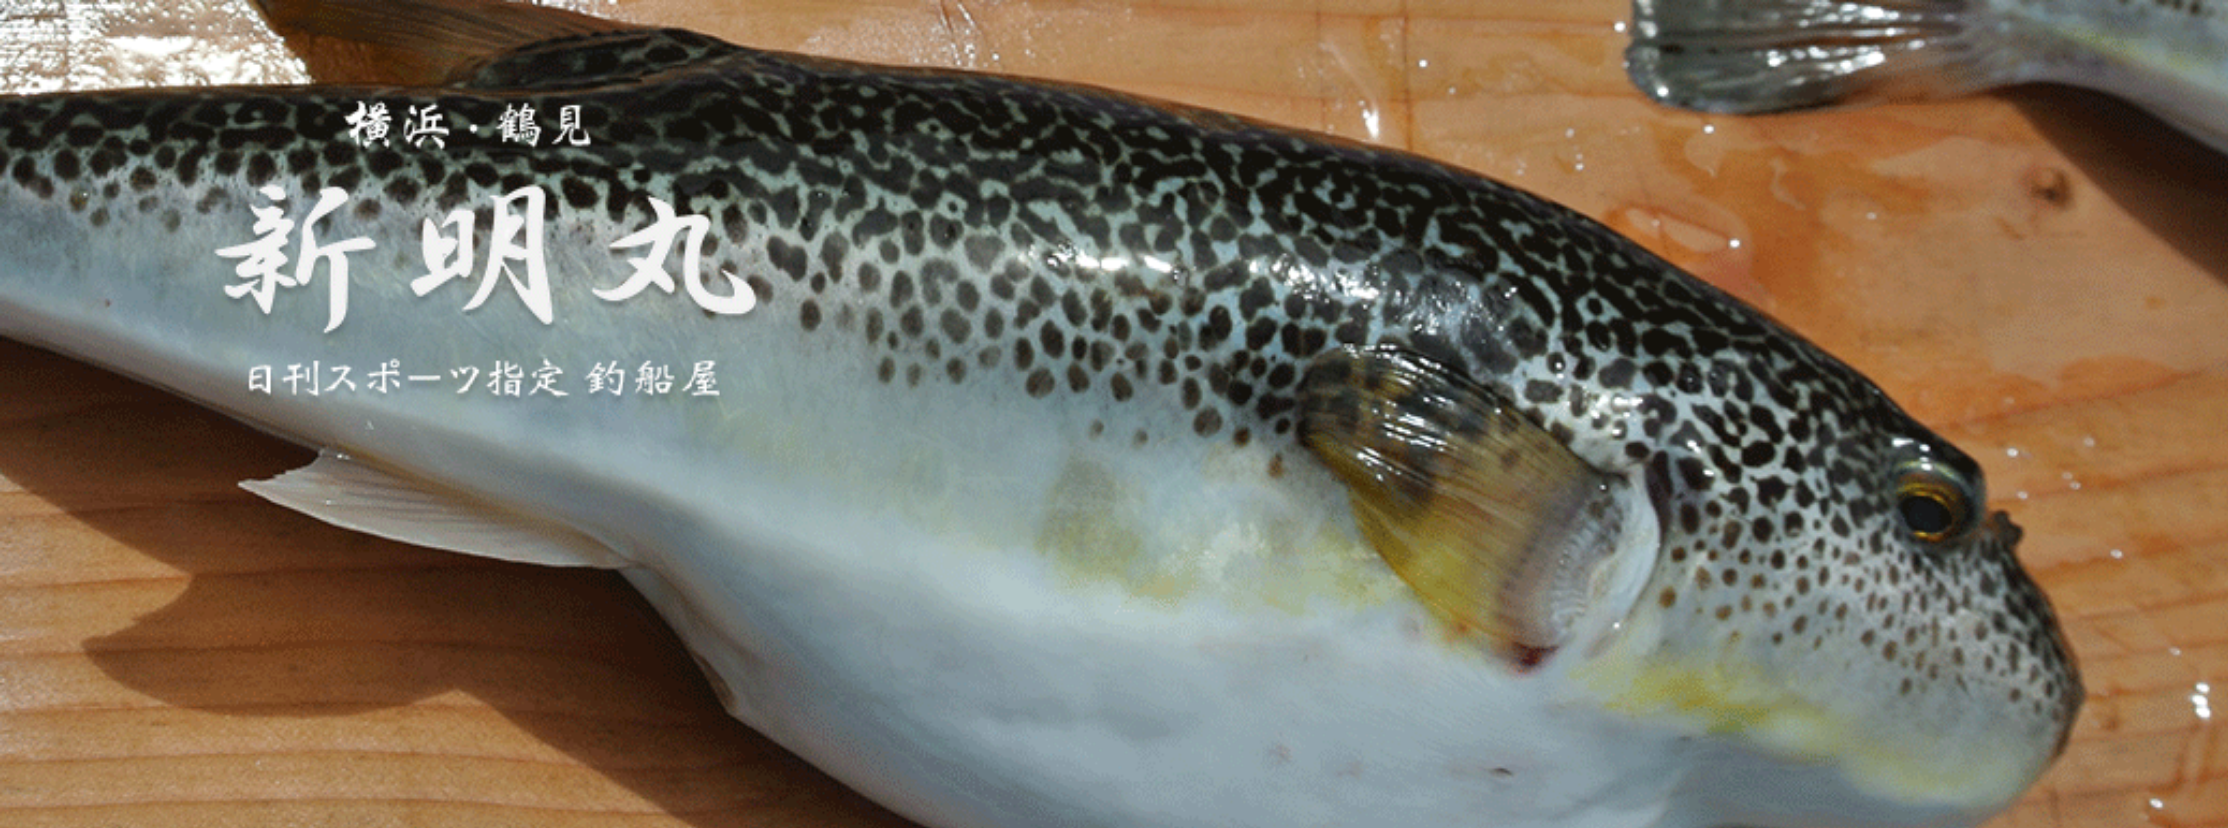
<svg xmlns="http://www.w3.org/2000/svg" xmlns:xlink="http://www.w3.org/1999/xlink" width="2228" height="828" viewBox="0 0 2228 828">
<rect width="100%" height="100%" fill="#ffffff"/>
<image xlink:href="image0.png" x="0" y="0" width="2228" height="828"/>
</svg>
